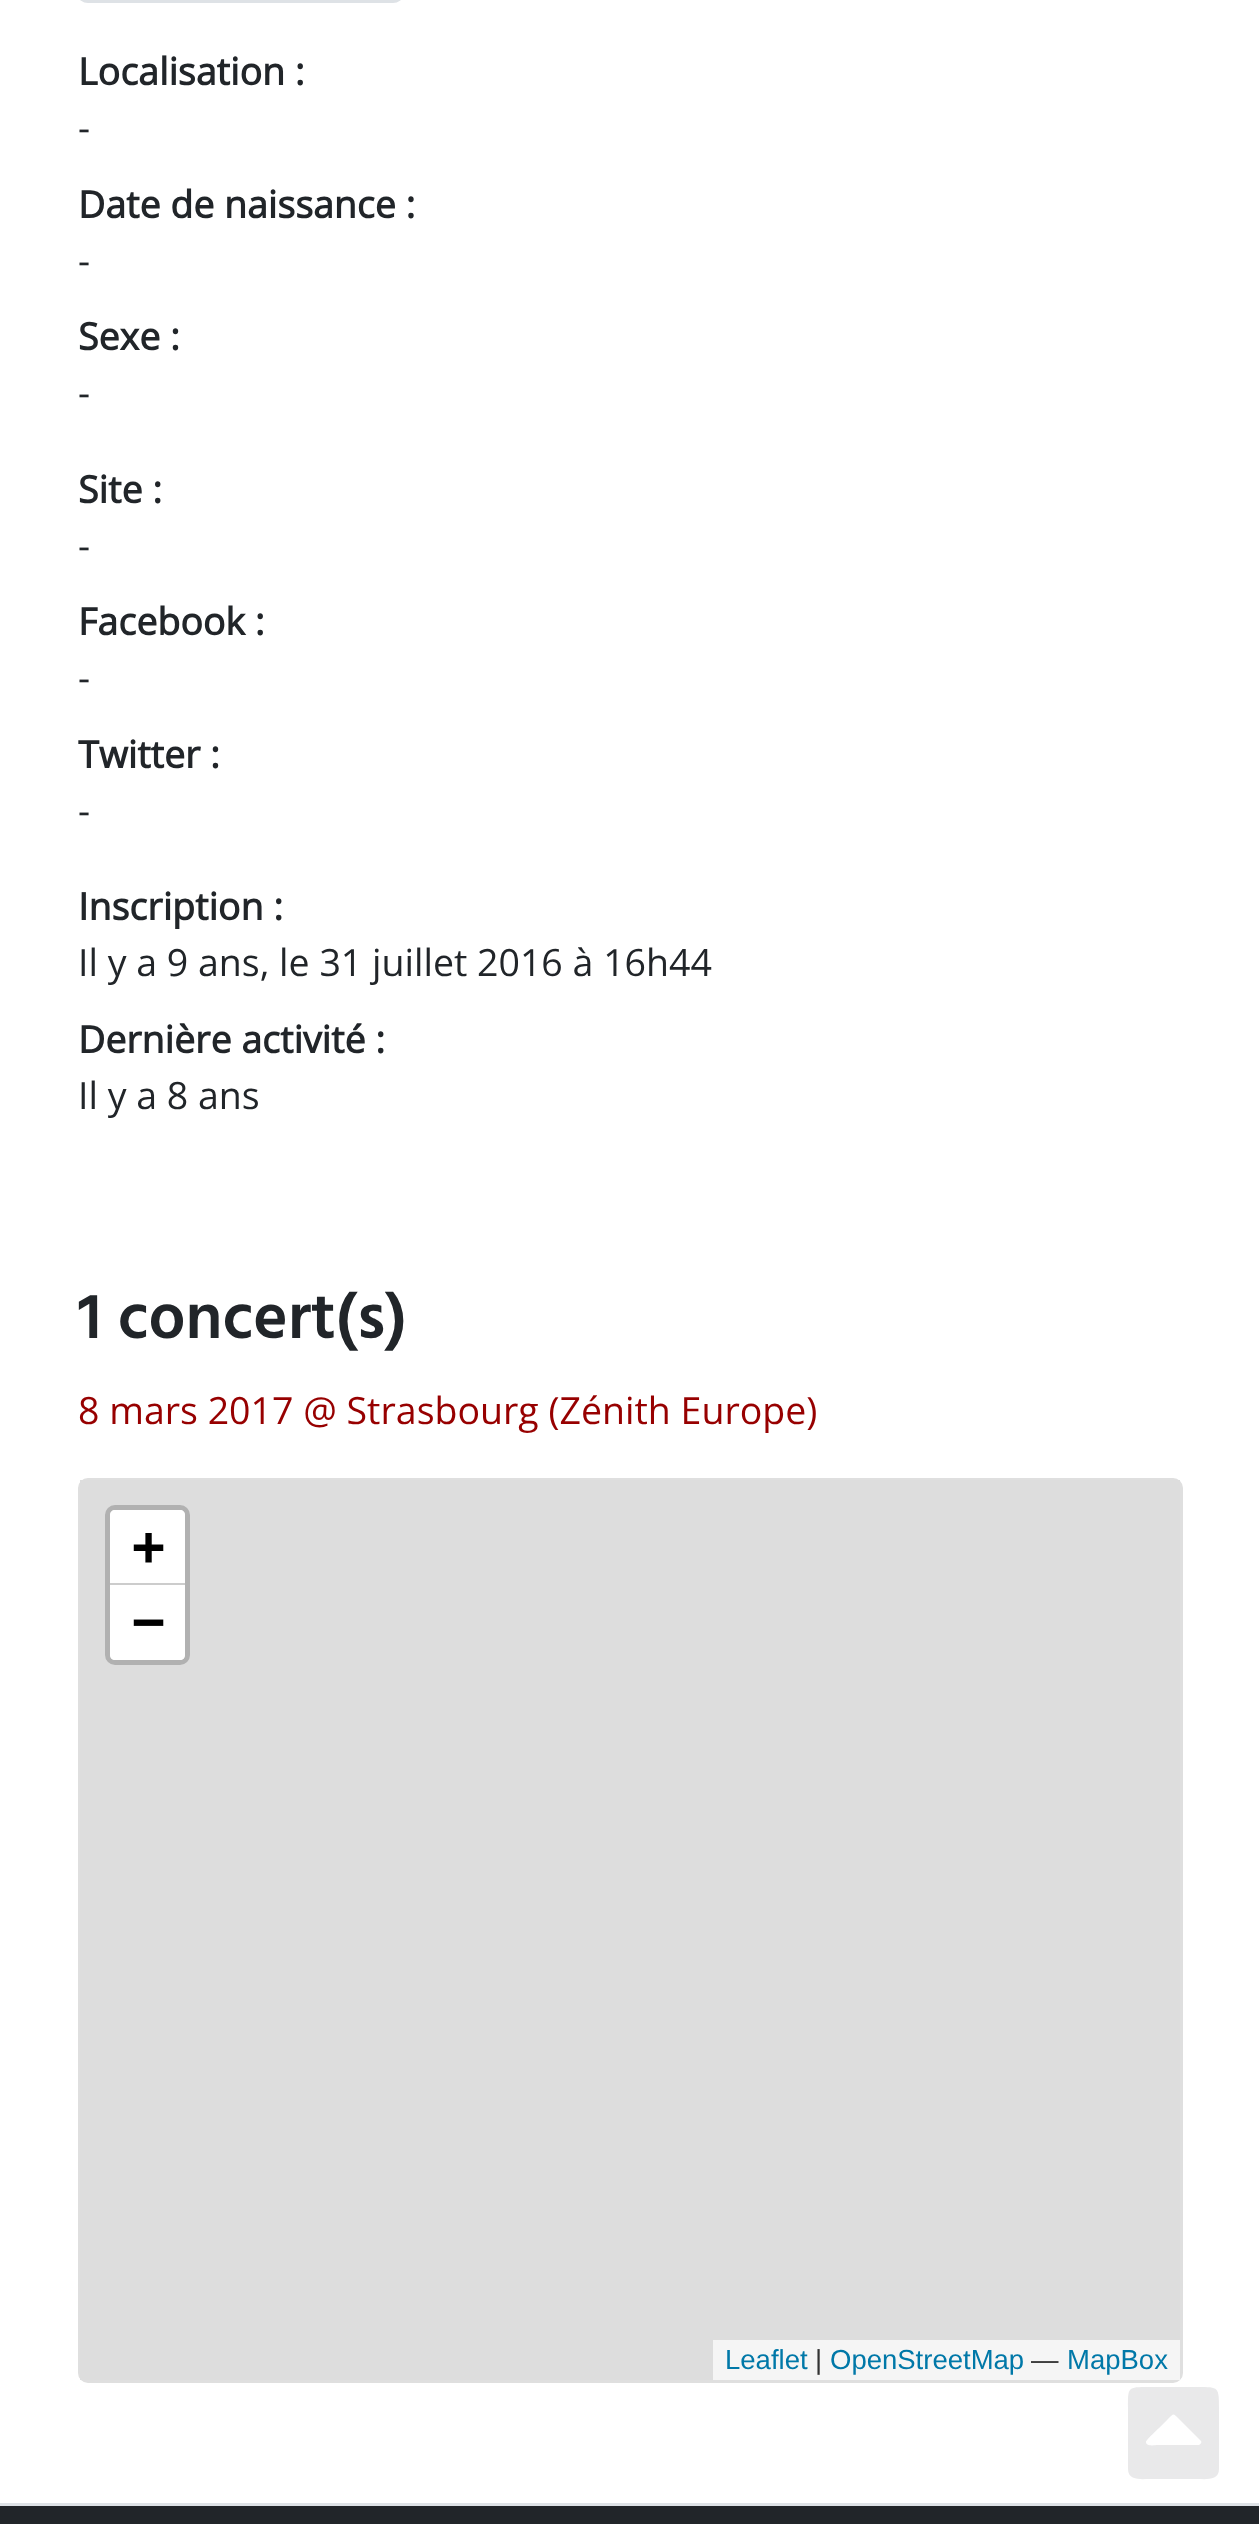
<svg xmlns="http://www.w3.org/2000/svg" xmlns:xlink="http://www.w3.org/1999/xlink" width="1259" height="2524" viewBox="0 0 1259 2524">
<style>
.cls-1{font:bold 37.5px Open Sans;fill:#212529}
.cls-2{font:37.5px Open Sans;fill:#212529}
.cls-3{font:600 65.5px Hind;fill:#212529}
.cls-4{font:37.5px Open Sans;fill:#970000}
.cls-5{font:bold 55px DejaVu Sans Mono;fill:#000000}
.cls-6{font:27.5px Liberation Sans;fill:#0078a8}
.cls-7{font:27.5px Liberation Sans;fill:#333333}
</style>
<rect width="100%" height="100%" fill="#212529"/>
<rect fill="#ffffff" x="0" y="0" width="1259" height="2503"/>
<rect fill="none" stroke="#dee2e6" stroke-width="3" x="79.5" y="-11.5" width="322" height="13" rx="8.5"/>
<rect fill="none" stroke="#dfdfdf" stroke-width="3" x="79.5" y="1479.5" width="1102" height="902" rx="8.5"/>
<rect fill="#dddddd" x="80" y="1480" width="1100" height="900"/>
<rect fill="none" stroke="#b1b1b1" stroke-width="5" x="107.5" y="1507.5" width="80" height="155" rx="7.5"/>
<path fill="#ffffff" d="M115 1510H180C183 1510 185 1512 185 1515V1585H110V1515C110 1512 112 1510 115 1510Z"/>
<rect fill="#cccccc" x="110" y="1583" width="75" height="2"/>
<path fill="#ffffff" d="M110 1585H185V1655C185 1658 183 1660 180 1660H115C112 1660 110 1658 110 1655Z"/>
<rect fill="#f5f5f5" x="713" y="2340" width="467" height="40"/>
<path fill="#e9e9ea" d="M1128 2469V2409C1128 2387 1127 2387 1149 2387H1198C1219 2387 1219 2387 1219 2409V2469C1219 2481 1205 2479 1198 2479H1149C1142 2479 1128 2481 1128 2469ZM1201 2441L1179 2419C1173 2413 1174 2413 1168 2419L1159 2428C1157 2430 1146 2440 1146 2442C1146 2447 1156 2445 1157 2445H1199C1201 2444 1202 2442 1201 2441Z"/>
<rect fill="#dee2e6" x="0" y="2503" width="1259" height="3"/>
<text class="cls-1" x="78" y="85">Localisation :</text>
<text class="cls-2" x="78" y="141">-</text>
<text class="cls-1" x="78" y="218">Date de naissance :</text>
<text class="cls-2" x="78" y="274">-</text>
<text class="cls-1" x="78" y="350">Sexe :</text>
<text class="cls-2" x="78" y="406">-</text>
<text class="cls-1" x="78" y="503">Site :</text>
<text class="cls-2" x="78" y="559">-</text>
<text class="cls-1" x="78" y="635">Facebook :</text>
<text class="cls-2" x="78" y="691">-</text>
<text class="cls-1" x="78" y="768">Twitter :</text>
<text class="cls-2" x="78" y="824">-</text>
<text class="cls-1" x="78" y="920">Inscription :</text>
<text class="cls-2" x="78" y="976">Il y a 9 ans, le 31 juillet 2016 à 16h44</text>
<text class="cls-1" x="78" y="1053">Dernière activité :</text>
<text class="cls-2" x="78" y="1109">Il y a 8 ans</text>
<text class="cls-3" x="78" y="1338">1 concert(s)</text>
<text class="cls-4" x="78" y="1424">8 mars 2017 @ Strasbourg (Zénith Europe)</text>
<text class="cls-5"><tspan x="132" y="1565">+</tspan><tspan x="132" y="1640">−</tspan></text>
<text class="cls-6" x="725" y="2369">Leaflet</text>
<text class="cls-7" x="815" y="2369">|</text>
<text class="cls-6" x="830" y="2369">OpenStreetMap</text>
<text class="cls-7" x="1031" y="2369">—</text>
<text class="cls-6" x="1067" y="2369">MapBox</text>
</svg>
